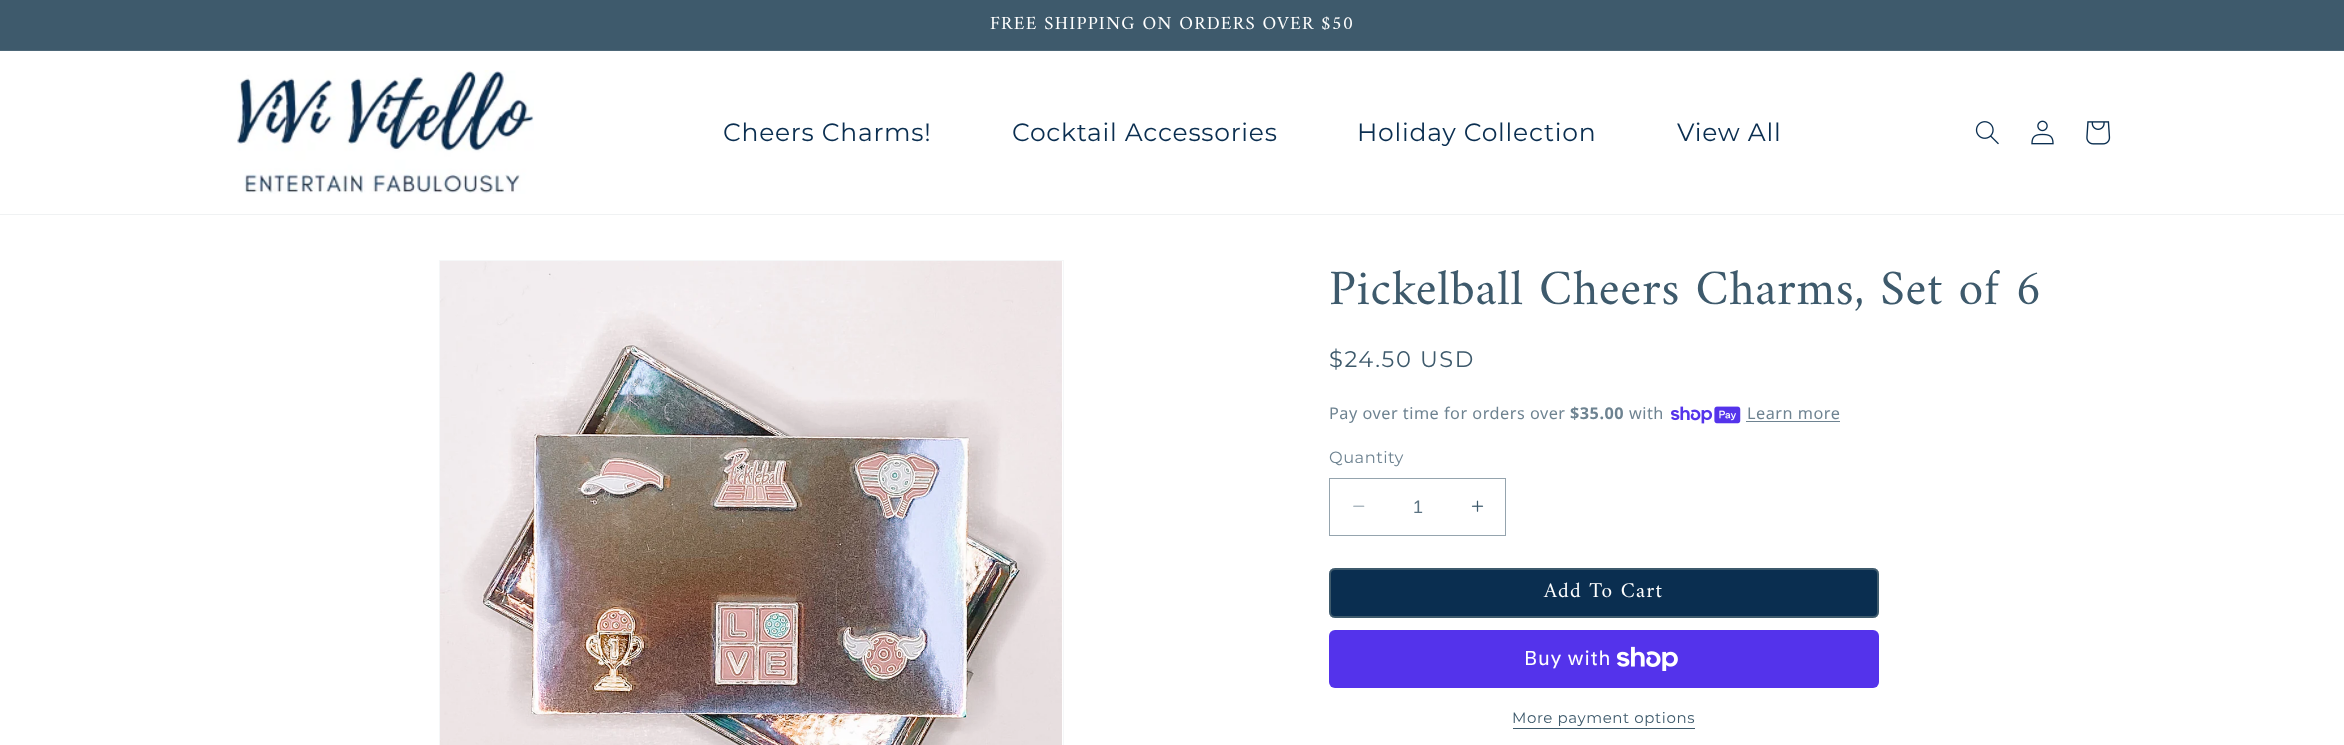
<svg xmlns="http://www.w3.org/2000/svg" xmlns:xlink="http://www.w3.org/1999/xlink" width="2344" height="745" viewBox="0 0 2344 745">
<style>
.cls-1{font:18.75px Amiri;letter-spacing:1.25px;fill:#ffffff}
.cls-2{font:25px Montserrat;letter-spacing:0.75px;fill:#0a2e50}
.cls-3{font:50px Amiri;letter-spacing:0.75px;fill:#3e5a6c}
.cls-4{font:22.5px Montserrat;letter-spacing:1.6px;fill:#3e5a6c}
.cls-5{font:16.25px Noto Sans;letter-spacing:0.5px;fill:#6e8391}
.cls-6{font:bold 16.25px Noto Sans;letter-spacing:0.5px;fill:#6e8391}
.cls-7{font:16.25px Montserrat;letter-spacing:0.5px;fill:#6e8391}
.cls-8{font:18px Liberation Sans;fill:#5b7382}
.cls-9{font:21.25px Amiri;letter-spacing:1.25px;fill:#ffffff}
.cls-10{font:20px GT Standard;letter-spacing:0.75px;fill:#ffffff}
.cls-11{font:15px Montserrat;letter-spacing:0.6px;fill:#3e5a6c}
</style>
<rect width="100%" height="100%" fill="#ffffff"/>
<rect fill="#3e5a6c" x="0" y="0" width="2344" height="50"/>
<rect fill="#4d6778" x="0" y="50" width="2344" height="1"/>
<rect fill="#f0f2f3" x="0" y="214" width="2344" height="1"/>
<image xlink:href="image0.png" x="237" y="70" width="297" height="124"/>
<image xlink:href="image1.png" x="1975" y="121" width="24" height="24"/>
<image xlink:href="image2.png" x="2031" y="120" width="23" height="25"/>
<image xlink:href="image3.png" x="2086" y="121" width="25" height="24"/>
<rect fill="none" stroke="#f5f7f8" x="439.5" y="260.5" width="624" height="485"/>
<image xlink:href="image4.png" x="440" y="261" width="622" height="484"/>
<image xlink:href="image5.png" x="1671" y="406" width="70" height="18"/>
<rect fill="#6e8391" x="1746" y="421" width="94" height="1"/>
<image xlink:href="image6.png" x="1353" y="505" width="12" height="2"/>
<image xlink:href="image7.png" x="1471" y="500" width="13" height="12"/>
<rect fill="none" stroke="#95a4ae" x="1329.5" y="478.5" width="176" height="57"/>
<rect fill="#0a2e50" x="1329" y="568" width="550" height="50" rx="6"/>
<rect fill="none" stroke="#ffffff" x="1329.5" y="568.5" width="549" height="49" rx="5.5"/>
<rect fill="none" stroke="#3e5a6c" stroke-width="2" x="1330" y="569" width="548" height="48" rx="5"/>
<rect fill="#5433eb" x="1329" y="630" width="550" height="58" rx="6"/>
<image xlink:href="image8.png" x="1616" y="646" width="62" height="25"/>
<rect fill="#3e5a6c" x="1513" y="728" width="182" height="1"/>
<text class="cls-1" x="990" y="29">FREE SHIPPING ON ORDERS OVER $50</text>
<text class="cls-2" x="723" y="141">Cheers Charms!</text>
<text class="cls-2" x="1012" y="141">Cocktail Accessories</text>
<text class="cls-2" x="1357" y="141">Holiday Collection</text>
<text class="cls-2" x="1677" y="141">View All</text>
<text class="cls-3" x="1329" y="304">Pickelball Cheers Charms, Set of 6</text>
<text class="cls-4" x="1329" y="367">$24.50 USD</text>
<text class="cls-5" x="1329" y="419">Pay over time for orders over</text>
<text class="cls-6" x="1570" y="419">$35.00</text>
<text class="cls-5" x="1629" y="419">with</text>
<text class="cls-5" x="1747" y="419">Learn more</text>
<text class="cls-7" x="1329" y="463">Quantity</text>
<text class="cls-8" x="1413" y="513">1</text>
<text class="cls-9" x="1544" y="597">Add To Cart</text>
<text class="cls-10" x="1524" y="665">Buy with</text>
<text class="cls-11" x="1512" y="723">More payment options</text>
</svg>
